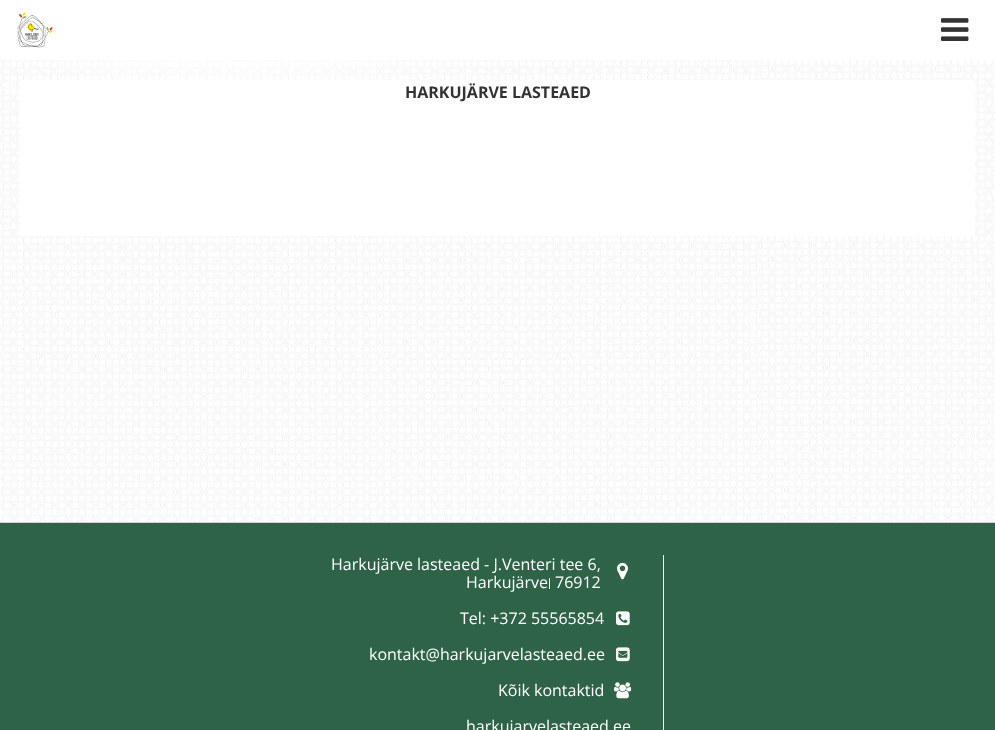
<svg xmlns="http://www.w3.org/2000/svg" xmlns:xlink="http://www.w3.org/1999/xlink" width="995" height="730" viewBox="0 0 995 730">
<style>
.cls-1{font:bold 16px Open Sans;fill:#333333}
.cls-2{font:16px Open Sans;fill:#ffffff}
</style>
<rect width="100%" height="100%" fill="#ffffff"/>
<image xlink:href="image0.png" x="0" y="60" width="995" height="462"/>
<image xlink:href="image1.png" x="3" y="60" width="474" height="33"/>
<image xlink:href="image2.png" x="17" y="12" width="36" height="36"/>
<image xlink:href="image3.png" x="941" y="18" width="28" height="23"/>
<rect fill="#ffffff" x="20" y="80" width="955" height="156"/>
<rect fill="#2e6347" x="0" y="523" width="995" height="207"/>
<rect fill="#d1d3d4" x="0" y="522" width="995" height="1"/>
<rect fill="#ffffff" x="663" y="555" width="1" height="175"/>
<rect fill="#ffffff" x="549" y="578" width="1" height="11"/>
<image xlink:href="image4.png" x="617" y="562" width="11" height="18"/>
<image xlink:href="image5.png" x="616" y="611" width="14" height="15"/>
<image xlink:href="image6.png" x="616" y="647" width="14" height="15"/>
<image xlink:href="image7.png" x="614" y="682" width="18" height="17"/>
<text class="cls-1" x="405" y="98">HARKUJÄRVE LASTEAED</text>
<text class="cls-2" x="331" y="570">Harkujärve lasteaed - J.Venteri tee 6,</text>
<text class="cls-2" x="466" y="588">Harkujärve</text>
<text class="cls-2" x="555" y="588">76912</text>
<text class="cls-2" x="460" y="624">Tel: +372 55565854</text>
<text class="cls-2" x="369" y="660">kontakt@harkujarvelasteaed.ee</text>
<text class="cls-2" x="498" y="696">Kõik kontaktid</text>
<text class="cls-2" x="466" y="732">harkujarvelasteaed.ee</text>
</svg>
